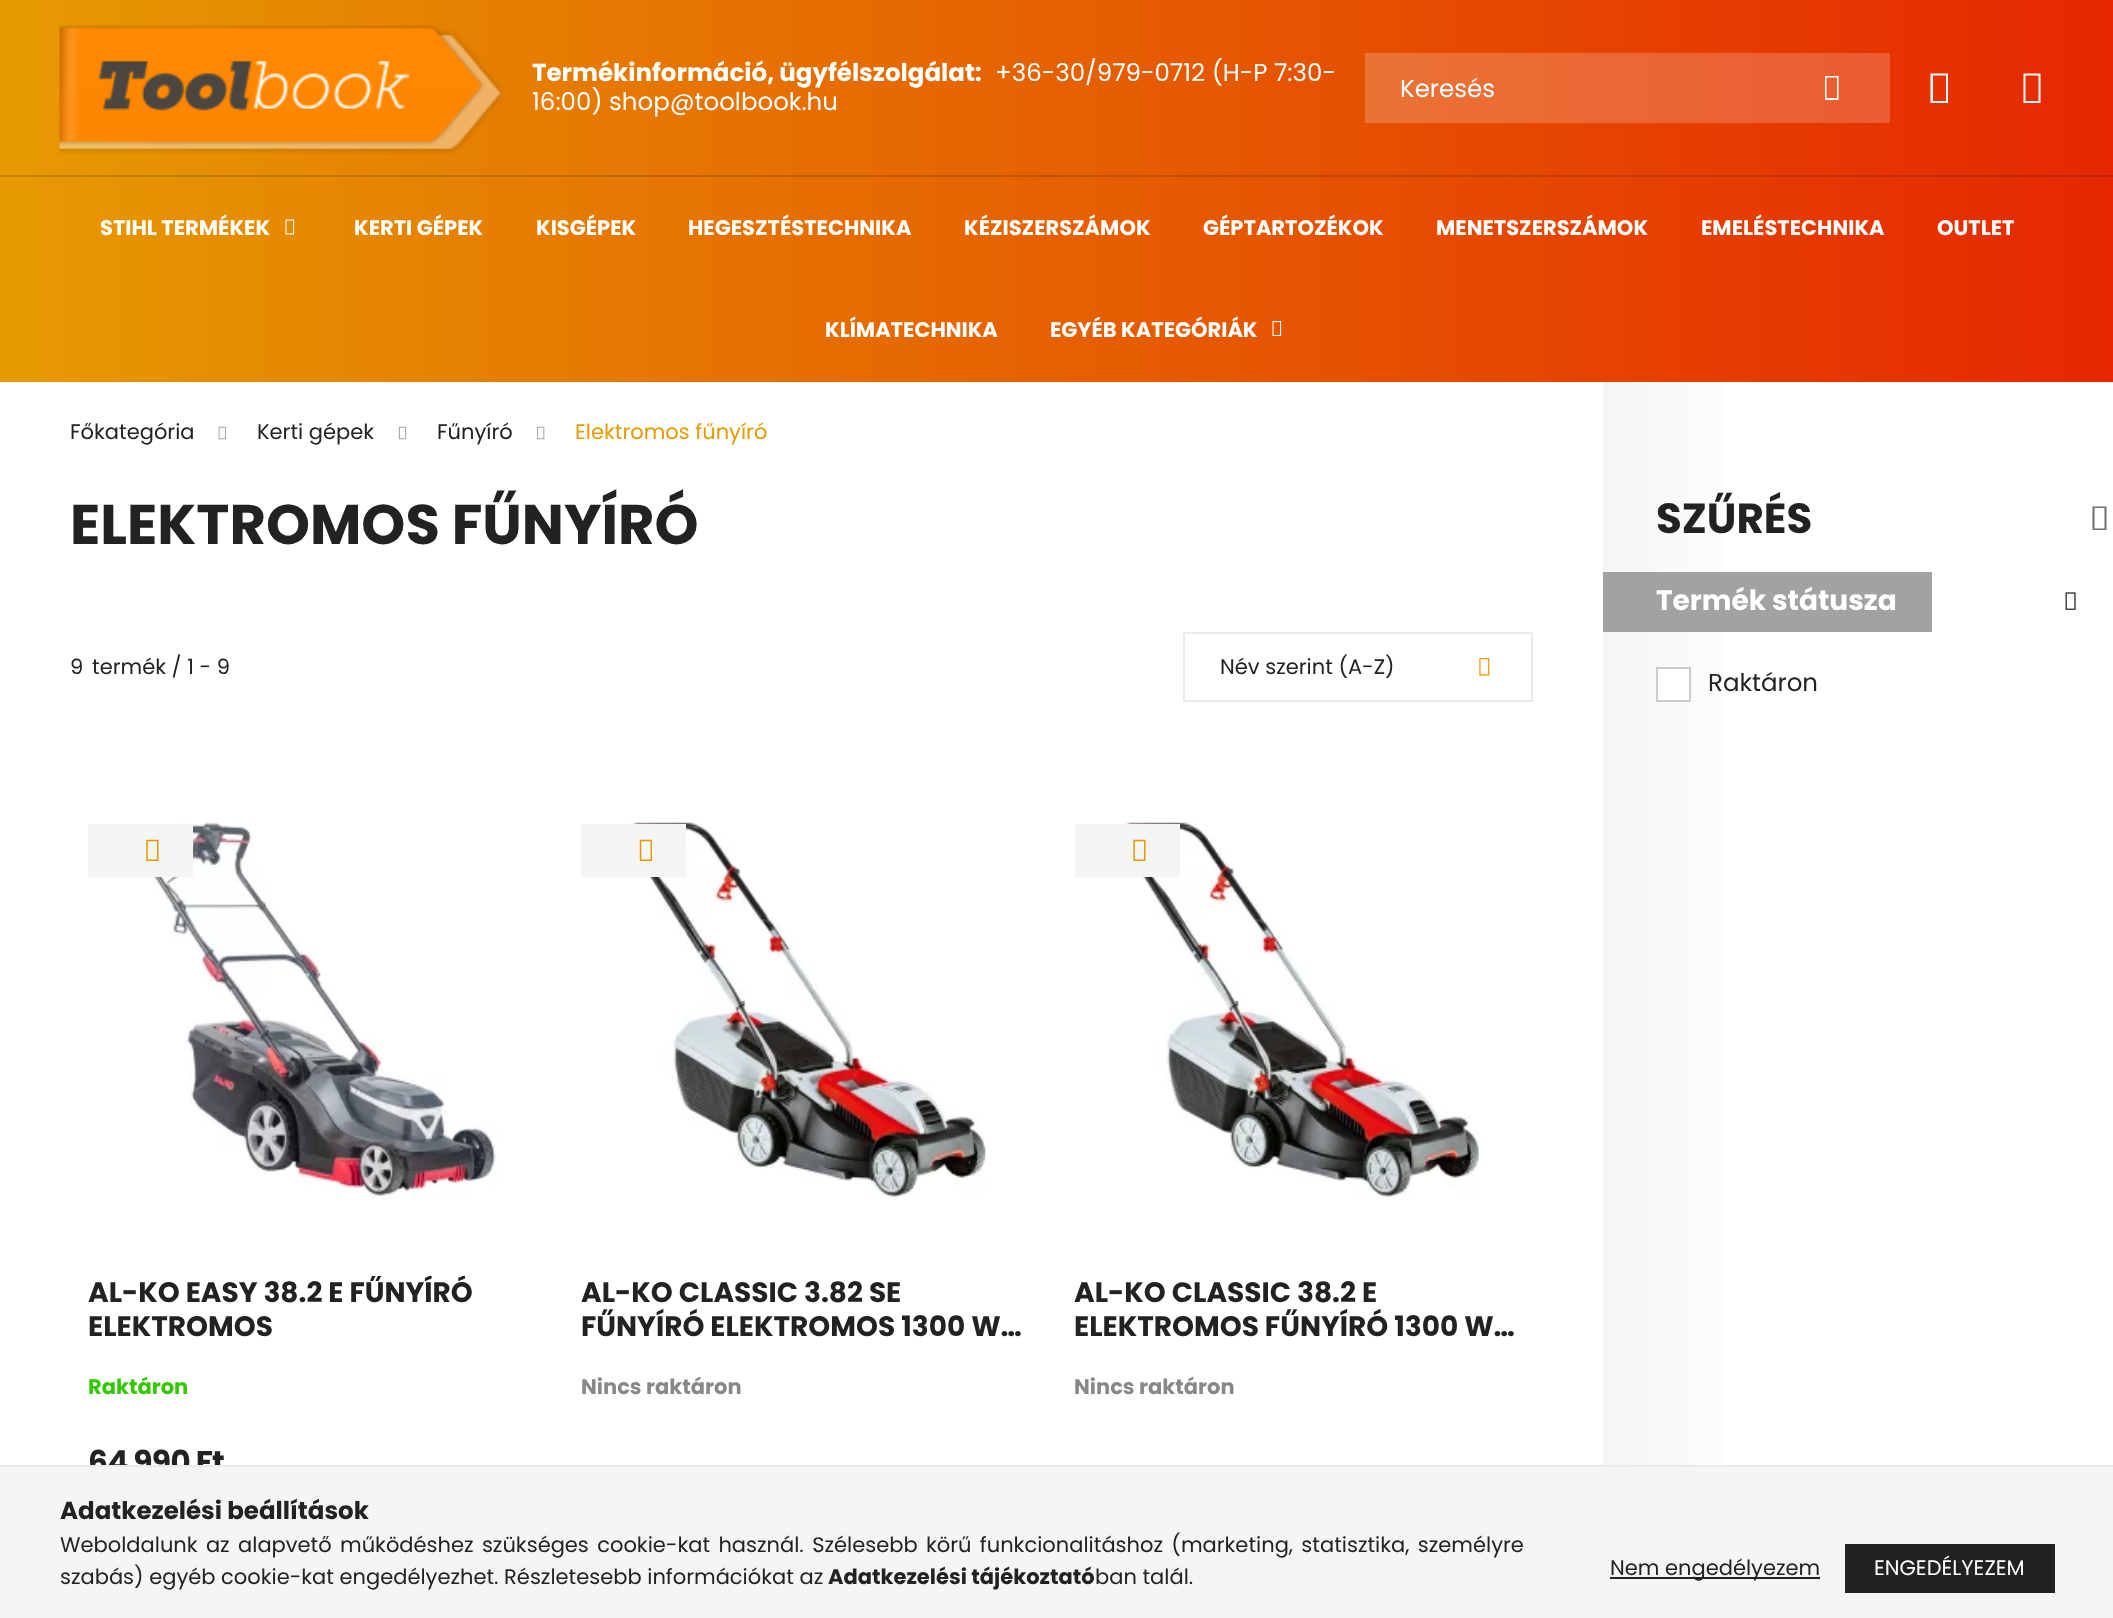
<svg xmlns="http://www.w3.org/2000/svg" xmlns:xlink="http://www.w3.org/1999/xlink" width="2113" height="1618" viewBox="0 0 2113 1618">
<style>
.cls-1{font:bold 24.5px Poppins;fill:#ffffff}
.cls-2{font:24.5px Poppins;fill:#ffffff}
.cls-3{font:bold 21px Poppins;fill:#ffffff}
.cls-4{font:21px Poppins;fill:#222222}
.cls-5{font:21px Poppins;fill:#e69a01}
.cls-6{font:bold 56px Poppins;fill:#222222}
.cls-7{font:bold 28px Poppins;fill:#222222}
.cls-8{font:bold 21px Poppins;fill:#34c800}
.cls-9{font:bold 31.5px Poppins;letter-spacing:-0.9px;fill:#222222}
.cls-10{font:bold 21px Poppins;fill:#888888}
.cls-11{font:bold 42px Poppins;fill:#222222}
.cls-12{font:bold 28px Poppins;fill:#ffffff}
.cls-13{font:24.5px Poppins;fill:#222222}
.cls-14{font:bold 24.5px Poppins;fill:#222222}
.cls-15{font:bold 21px Poppins;fill:#222222}
.cls-16{font:21px Poppins;fill:#ffffff}
</style>
<defs>
<linearGradient id="g1" gradientUnits="userSpaceOnUse" x1="0" y1="88" x2="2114" y2="87"><stop offset="0" stop-color="#e69a01"/><stop offset="1" stop-color="#e62701"/></linearGradient>
<linearGradient id="g2" gradientUnits="userSpaceOnUse" x1="0" y1="88" x2="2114" y2="87"><stop offset="0" stop-color="#ebae34"/><stop offset="1" stop-color="#eb5234"/></linearGradient>
<linearGradient id="g3" gradientUnits="userSpaceOnUse" x1="0" y1="279" x2="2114" y2="279"><stop offset="0" stop-color="#e69a01"/><stop offset="1" stop-color="#e62701"/></linearGradient>
<linearGradient id="g4" gradientUnits="userSpaceOnUse" x1="0" y1="279" x2="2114" y2="279"><stop offset="0" stop-color="#bf8208"/><stop offset="1" stop-color="#bf2608"/></linearGradient>
<linearGradient id="g5" gradientUnits="userSpaceOnUse" x1="1603" y1="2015" x2="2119" y2="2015"><stop offset="0" stop-color="#f5f5f5"/><stop offset="0.31" stop-color="#ffffff"/><stop offset="1" stop-color="#ffffff"/></linearGradient>
<clipPath id="clip1"><rect x="88" y="1276" width="441" height="68"/></clipPath>
<linearGradient id="g6" gradientUnits="userSpaceOnUse" x1="1425" y1="1568" x2="2055" y2="1568"><stop offset="0" stop-color="#e69a01"/><stop offset="0.33" stop-color="#e62701"/><stop offset="0.67" stop-color="#222222"/><stop offset="1" stop-color="#222222"/></linearGradient>
</defs>
<rect width="100%" height="100%" fill="#ffffff"/>
<rect fill="url(#g1)" x="0" y="0" width="2113" height="175"/>
<rect fill="url(#g2)" x="1365" y="53" width="525" height="70"/>
<image xlink:href="image0.png" x="59" y="25" width="445" height="129"/>
<path fill="#ffffff" d="M1825 100V76H1838.5V100ZM1826.5 98H1837V77.5H1826.5Z"/>
<path fill="#ffffff" d="M1930.5 103V73.5H1948V103ZM1933 101H1946V75.5H1933Z"/>
<path fill="#ffffff" d="M2023.5 103V73.5H2040.5V103ZM2025.5 101H2038.5V75.5H2025.5Z"/>
<rect fill="url(#g3)" x="0" y="177" width="2113" height="205"/>
<rect fill="url(#g4)" x="0" y="175" width="2113" height="2"/>
<image xlink:href="image1.png" x="285" y="219" width="10" height="16"/>
<image xlink:href="image2.png" x="1272" y="321" width="10" height="15"/>
<image xlink:href="image3.png" x="218" y="426" width="8" height="14"/>
<image xlink:href="image4.png" x="398" y="426" width="9" height="14"/>
<image xlink:href="image5.png" x="537" y="426" width="8" height="14"/>
<rect fill="none" stroke="#eaeaea" stroke-width="2" x="1184" y="633" width="348" height="68"/>
<image xlink:href="image6.png" x="1479" y="658" width="11" height="18"/>
<image xlink:href="image8.png" x="151" y="822" width="347" height="378"/>
<rect fill="#f5f5f5" x="88" y="824" width="105" height="53"/>
<image xlink:href="image7.png" x="146" y="839" width="13" height="22"/>
<image xlink:href="image9.png" x="625" y="815" width="361" height="385"/>
<rect fill="#f5f5f5" x="581" y="824" width="105" height="53"/>
<image xlink:href="image10.png" x="639" y="839" width="14" height="22"/>
<image xlink:href="image11.png" x="1119" y="815" width="360" height="385"/>
<rect fill="#f5f5f5" x="1075" y="824" width="105" height="53"/>
<image xlink:href="image7.png" x="1133" y="839" width="13" height="22"/>
<rect fill="url(#g5)" x="1603" y="382" width="120" height="1083"/>
<path fill="#6f6f6f" d="M2092.5 530V506.5H2106.5V530ZM2094.5 528.5H2104.5V508H2094.5Z"/>
<rect fill="#a2a2a2" x="1603" y="572" width="329" height="60"/>
<image xlink:href="image12.png" x="2065" y="592" width="11" height="18"/>
<rect fill="#ffffff" stroke="#cccccc" stroke-width="2" x="1657" y="668" width="33" height="33"/>
<text class="cls-1" x="532" y="81">Termékinformáció, ügyfélszolgálat:</text>
<text class="cls-2" x="995" y="81">+36-30/979-0712 (H-P 7:30-</text>
<text class="cls-2" x="532" y="110">16:00) shop@toolbook.hu</text>
<text class="cls-2" x="1400" y="97">Keresés</text>
<text class="cls-3" x="100" y="235">STIHL TERMÉKEK</text>
<text class="cls-3" x="354" y="235">KERTI GÉPEK</text>
<text class="cls-3" x="536" y="235">KISGÉPEK</text>
<text class="cls-3" x="688" y="235">HEGESZTÉSTECHNIKA</text>
<text class="cls-3" x="964" y="235">KÉZISZERSZÁMOK</text>
<text class="cls-3" x="1203" y="235">GÉPTARTOZÉKOK</text>
<text class="cls-3" x="1436" y="235">MENETSZERSZÁMOK</text>
<text class="cls-3" x="1701" y="235">EMELÉSTECHNIKA</text>
<text class="cls-3" x="1937" y="235">OUTLET</text>
<text class="cls-3" x="825" y="337">KLÍMATECHNIKA</text>
<text class="cls-3" x="1050" y="337">EGYÉB KATEGÓRIÁK</text>
<text class="cls-4" x="70" y="439">Főkategória</text>
<text class="cls-4" x="257" y="439">Kerti gépek</text>
<text class="cls-4" x="437" y="439">Fűnyíró</text>
<text class="cls-5" x="575" y="439">Elektromos fűnyíró</text>
<text class="cls-6" x="70" y="544">ELEKTROMOS FŰNYÍRÓ</text>
<text class="cls-4" x="70" y="674">9</text>
<text class="cls-4" x="92" y="674">termék / 1 - 9</text>
<text class="cls-4" x="1220" y="674">Név szerint (A-Z)</text>
<g clip-path="url(#clip1)">
<text class="cls-7" x="88" y="1302">AL-KO EASY 38.2 E FŰNYÍRÓ</text>
</g>
<text class="cls-7" x="88" y="1336">ELEKTROMOS</text>
<text class="cls-8" x="88" y="1394">Raktáron</text>
<text class="cls-9" x="88" y="1473">64 990 Ft</text>
<text class="cls-7"><tspan x="581" y="1302">AL-KO CLASSIC 3.82 SE</tspan><tspan x="581" y="1336">FŰNYÍRÓ ELEKTROMOS 1300 W…</tspan></text>
<text class="cls-10" x="581" y="1394">Nincs raktáron</text>
<text class="cls-7"><tspan x="1074" y="1302">AL-KO CLASSIC 38.2 E</tspan><tspan x="1074" y="1336">ELEKTROMOS FŰNYÍRÓ 1300 W…</tspan></text>
<text class="cls-10" x="1074" y="1394">Nincs raktáron</text>
<text class="cls-11" x="1656" y="533">SZŰRÉS</text>
<text class="cls-12" x="1656" y="610">Termék státusza</text>
<text class="cls-13" x="1708" y="691">Raktáron</text>
<rect fill="#f5f5f5" x="0" y="1467" width="2113" height="151"/>
<rect fill="#eaeaea" x="0" y="1465" width="2113" height="2"/>
<text class="cls-14" x="60" y="1519">Adatkezelési beállítások</text>
<text class="cls-4"><tspan x="60" y="1552" word-spacing="2.75">Weboldalunk az alapvető működéshez szükséges cookie-kat használ. Szélesebb körű funkcionalitáshoz (marketing, statisztika, személyre</tspan><tspan x="60" y="1584">szabás) egyéb cookie-kat engedélyezhet. Részletesebb információkat az</tspan></text>
<text class="cls-15" x="828" y="1584">Adatkezelési tájékoztató</text>
<text class="cls-4" x="1095" y="1584">ban talál.</text>
<rect fill="#222222" x="1610" y="1577" width="210" height="2"/>
<text class="cls-4" x="1610" y="1575">Nem engedélyezem</text>
<rect fill="url(#g6)" x="1845" y="1544" width="210" height="49"/>
<text class="cls-16" x="1874" y="1575">ENGEDÉLYEZEM</text>
</svg>
